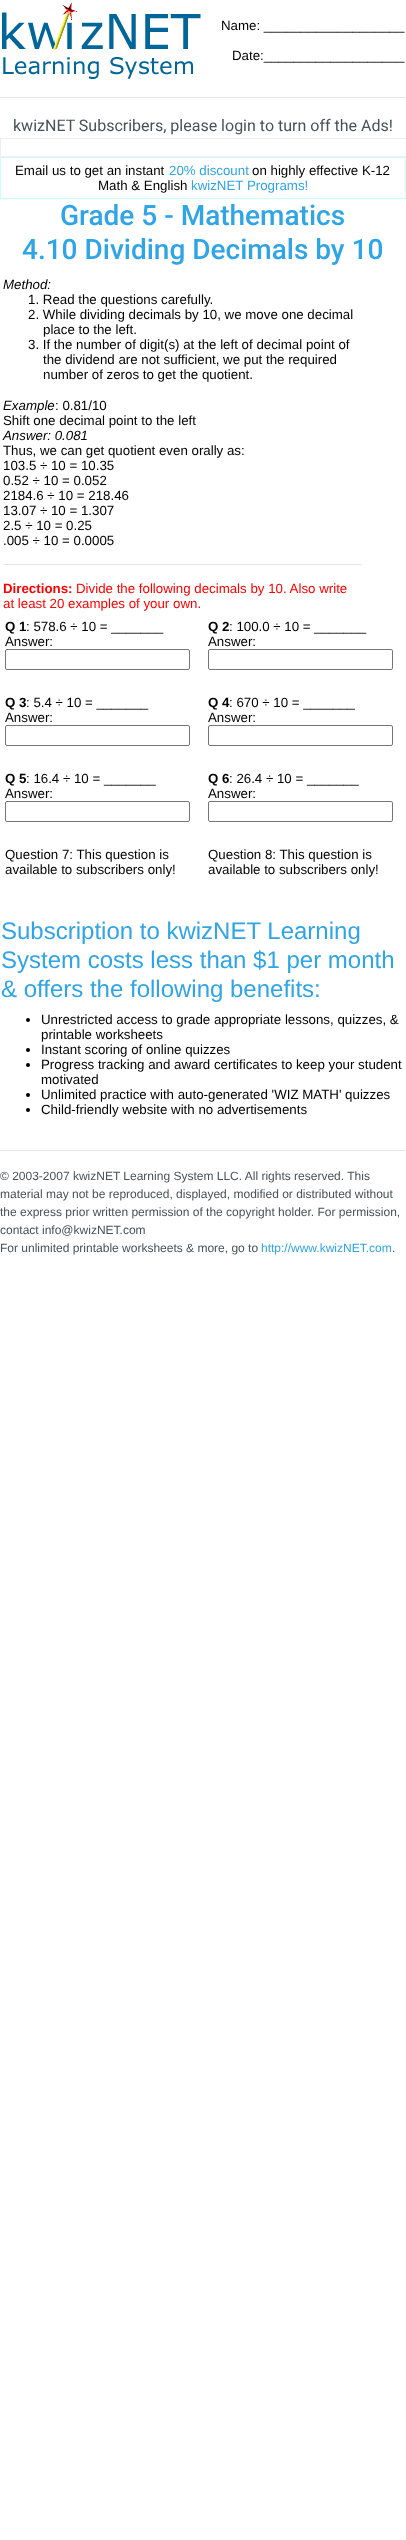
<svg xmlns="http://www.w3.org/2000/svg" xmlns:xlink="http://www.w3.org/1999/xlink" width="406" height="2540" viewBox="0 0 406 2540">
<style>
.cls-1{font:13.3px Liberation Sans;fill:#000000}
.cls-2{font:16px Roboto;fill:#495057}
.cls-3{font:13.3px Liberation Sans;fill:#2fa4e7}
.cls-4{font:500 28px Roboto;fill:#2fa4e7}
.cls-5{font:italic 13.3px Liberation Sans;fill:#000000}
.cls-6{font:bold 13.3px Liberation Sans;fill:#ff0000}
.cls-7{font:13.3px Liberation Sans;fill:#ff0000}
.cls-8{font:bold 13.3px Liberation Sans;fill:#000000}
.cls-9{font:24px Liberation Sans;fill:#2fa4e7}
.cls-10{font:12px Liberation Sans;fill:#495057}
.cls-11{font:12px Liberation Sans;fill:#2fa4e7}
</style>
<rect width="100%" height="100%" fill="#ffffff"/>
<image xlink:href="image0.png" x="2" y="2" width="199" height="77"/>
<rect fill="#e6e6e6" x="0" y="97" width="406" height="1"/>
<rect fill="#eeeeee" x="0" y="138" width="406" height="1"/>
<rect fill="#eeeeee" x="0" y="156" width="406" height="1"/>
<rect fill="#eeeeee" x="0" y="138" width="1" height="19"/>
<rect fill="#ccffff" x="0" y="157" width="406" height="42"/>
<rect fill="#ffffff" x="1" y="158" width="404" height="40"/>
<rect fill="#e6e6e6" x="3" y="564" width="359" height="1"/>
<rect fill="none" stroke="#767676" x="5.5" y="649.5" width="184" height="20" rx="1.5"/>
<rect fill="none" stroke="#767676" x="208.5" y="649.5" width="184" height="20" rx="1.5"/>
<rect fill="none" stroke="#767676" x="5.5" y="725.5" width="184" height="20" rx="1.5"/>
<rect fill="none" stroke="#767676" x="208.5" y="725.5" width="184" height="20" rx="1.5"/>
<rect fill="none" stroke="#767676" x="5.5" y="801.5" width="184" height="20" rx="1.5"/>
<rect fill="none" stroke="#767676" x="208.5" y="801.5" width="184" height="20" rx="1.5"/>
<circle fill="#000000" cx="28" cy="1020" r="2"/>
<circle fill="#000000" cx="28" cy="1050" r="2"/>
<circle fill="#000000" cx="28" cy="1065" r="2"/>
<circle fill="#000000" cx="28" cy="1095" r="2"/>
<circle fill="#000000" cx="28" cy="1110" r="2"/>
<rect fill="#e6e6e6" x="0" y="1150" width="406" height="1"/>
<text class="cls-1" x="221" y="30">Name: ___________________</text>
<text class="cls-1" x="232" y="60">Date:___________________</text>
<text class="cls-2" x="13" y="131">kwizNET Subscribers, please login to turn off the Ads!</text>
<text class="cls-1" x="15" y="175">Email us to get an instant</text>
<text class="cls-3" x="169" y="175">20% discount</text>
<text class="cls-1" x="252" y="175">on highly effective K-12</text>
<text class="cls-1" x="98" y="190">Math &amp; English</text>
<text class="cls-3" x="191" y="190">kwizNET Programs!</text>
<text class="cls-4" x="60" y="225">Grade 5 - Mathematics</text>
<text class="cls-4" x="22" y="259">4.10 Dividing Decimals by 10</text>
<text class="cls-5" x="3" y="289">Method:</text>
<text class="cls-1"><tspan x="28" y="304">1. Read the questions carefully.</tspan><tspan x="28" y="319">2. While dividing decimals by 10, we move one decimal</tspan></text>
<text class="cls-1" x="43" y="334">place to the left.</text>
<text class="cls-1" x="28" y="349">3. If the number of digit(s) at the left of decimal point of</text>
<text class="cls-1"><tspan x="43" y="364">the dividend are not sufficient, we put the required</tspan><tspan x="43" y="379">number of zeros to get the quotient.</tspan></text>
<text class="cls-5" x="3" y="410">Example</text>
<text class="cls-1" x="55" y="410">: 0.81/10</text>
<text class="cls-1" x="3" y="425">Shift one decimal point to the left</text>
<text class="cls-5" x="3" y="440">Answer: 0.081</text>
<text class="cls-1"><tspan x="3" y="455">Thus, we can get quotient even orally as:</tspan><tspan x="3" y="470">103.5 ÷ 10 = 10.35</tspan><tspan x="3" y="485">0.52 ÷ 10 = 0.052</tspan><tspan x="3" y="500">2184.6 ÷ 10 = 218.46</tspan><tspan x="3" y="515">13.07 ÷ 10 = 1.307</tspan><tspan x="3" y="530">2.5 ÷ 10 = 0.25</tspan><tspan x="3" y="545">.005 ÷ 10 = 0.0005</tspan></text>
<text class="cls-6" x="3" y="593">Directions:</text>
<text class="cls-7" x="76" y="593">Divide the following decimals by 10. Also write</text>
<text class="cls-7" x="3" y="608">at least 20 examples of your own.</text>
<text class="cls-8" x="5" y="631">Q 1</text>
<text class="cls-1" x="26" y="631">: 578.6 ÷ 10 = _______</text>
<text class="cls-1" x="5" y="646">Answer:</text>
<text class="cls-8" x="208" y="631">Q 2</text>
<text class="cls-1" x="229" y="631">: 100.0 ÷ 10 = _______</text>
<text class="cls-1" x="208" y="646">Answer:</text>
<text class="cls-8" x="5" y="707">Q 3</text>
<text class="cls-1" x="26" y="707">: 5.4 ÷ 10 = _______</text>
<text class="cls-1" x="5" y="722">Answer:</text>
<text class="cls-8" x="208" y="707">Q 4</text>
<text class="cls-1" x="229" y="707">: 670 ÷ 10 = _______</text>
<text class="cls-1" x="208" y="722">Answer:</text>
<text class="cls-8" x="5" y="783">Q 5</text>
<text class="cls-1" x="26" y="783">: 16.4 ÷ 10 = _______</text>
<text class="cls-1" x="5" y="798">Answer:</text>
<text class="cls-8" x="208" y="783">Q 6</text>
<text class="cls-1" x="229" y="783">: 26.4 ÷ 10 = _______</text>
<text class="cls-1" x="208" y="798">Answer:</text>
<text class="cls-1"><tspan x="5" y="859">Question 7: This question is</tspan><tspan x="5" y="874">available to subscribers only!</tspan></text>
<text class="cls-1"><tspan x="208" y="859">Question 8: This question is</tspan><tspan x="208" y="874">available to subscribers only!</tspan></text>
<text class="cls-9"><tspan x="1" y="939">Subscription to kwizNET Learning</tspan><tspan x="1" y="968">System costs less than $1 per month</tspan><tspan x="1" y="997">&amp; offers the following benefits:</tspan></text>
<text class="cls-1"><tspan x="41" y="1024">Unrestricted access to grade appropriate lessons, quizzes, &amp;</tspan><tspan x="41" y="1039">printable worksheets</tspan><tspan x="41" y="1054">Instant scoring of online quizzes</tspan><tspan x="41" y="1069">Progress tracking and award certificates to keep your student</tspan><tspan x="41" y="1084">motivated</tspan><tspan x="41" y="1099">Unlimited practice with auto-generated 'WIZ MATH' quizzes</tspan><tspan x="41" y="1114">Child-friendly website with no advertisements</tspan></text>
<text class="cls-10"><tspan x="0" y="1180">© 2003-2007 kwizNET Learning System LLC. All rights reserved. This</tspan><tspan x="0" y="1198">material may not be reproduced, displayed, modified or distributed without</tspan><tspan x="0" y="1216">the express prior written permission of the copyright holder. For permission,</tspan><tspan x="0" y="1234">contact info@kwizNET.com</tspan><tspan x="0" y="1252">For unlimited printable worksheets &amp; more, go to</tspan></text>
<text class="cls-11" x="261" y="1252">http://www.kwizNET.com</text>
<text class="cls-10" x="392" y="1252">.</text>
</svg>
